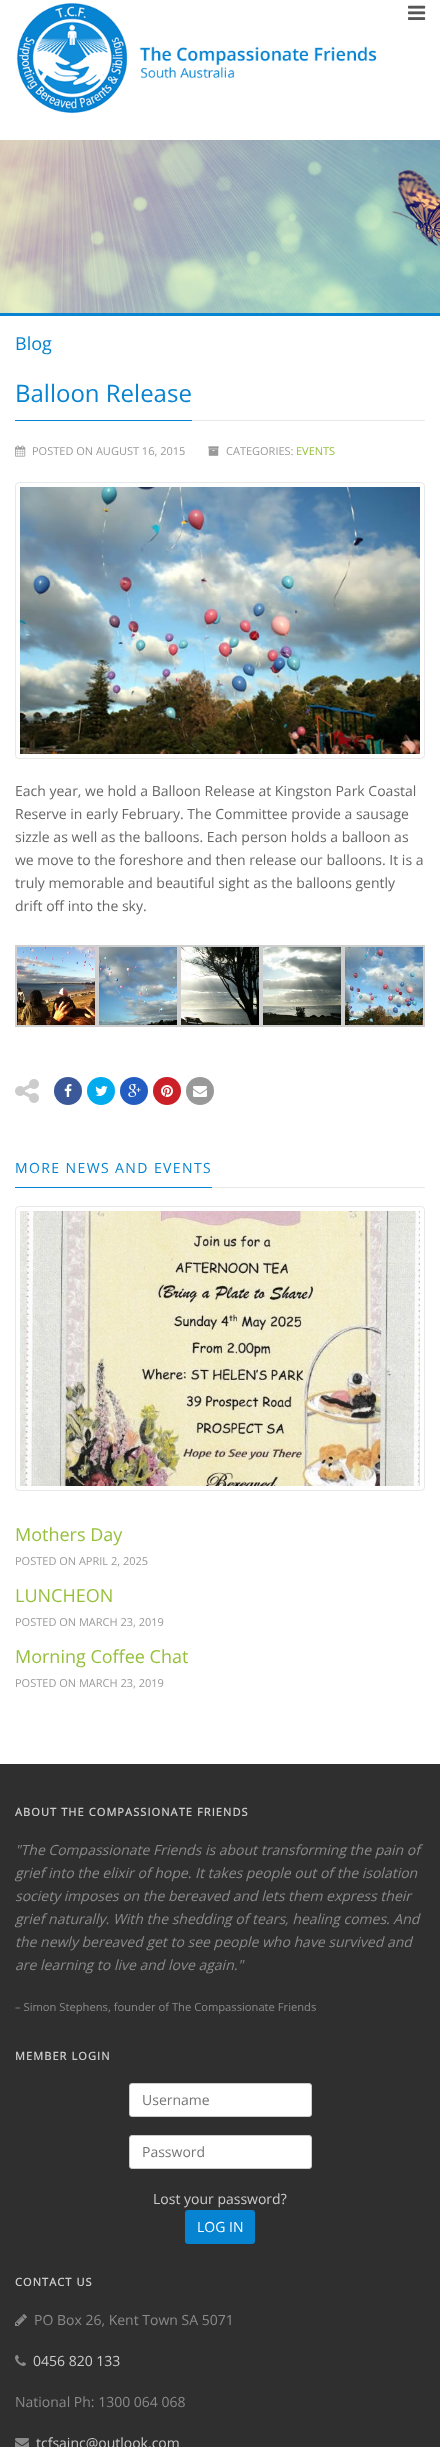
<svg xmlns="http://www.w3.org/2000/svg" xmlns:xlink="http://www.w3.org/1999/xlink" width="440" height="2447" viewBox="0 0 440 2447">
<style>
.cls-1{font:18px Open Sans;fill:#0683d1}
.cls-2{font:24px Open Sans;fill:#0683d1}
.cls-3{font:11px Open Sans;fill:#999999}
.cls-4{font:11px Open Sans;fill:#96c03c}
.cls-5{font:14px Open Sans;fill:#666666}
.cls-6{font:14px Open Sans;letter-spacing:1.4px;fill:#0683d1}
.cls-7{font:18px Open Sans;fill:#96c03c}
.cls-8{font:bold 11px Open Sans;letter-spacing:1.1px;fill:#cccccc}
.cls-9{font:italic 14px Open Sans;fill:#8a8a8a}
.cls-10{font:11.2px Open Sans;fill:#8a8a8a}
.cls-11{font:14px Open Sans;fill:#757575}
.cls-12{font:14px Open Sans;fill:#cccccc}
.cls-13{font:14px Open Sans;fill:#ffffff}
.cls-14{font:14px Open Sans;fill:#8a8a8a}
</style>
<rect width="100%" height="100%" fill="#ffffff"/>
<image xlink:href="image0.png" x="16" y="2" width="361" height="112"/>
<image xlink:href="image1.png" x="408" y="5" width="18" height="15"/>
<image xlink:href="image2.png" x="0" y="140" width="440" height="173"/>
<rect fill="#0683d1" x="0" y="313" width="440" height="3"/>
<rect fill="#e8e8e8" x="192" y="420" width="233" height="1"/>
<rect fill="#0683d1" x="15" y="420" width="177" height="1"/>
<image xlink:href="image3.png" x="15" y="445" width="11" height="12"/>
<image xlink:href="image4.png" x="208" y="446" width="11" height="10"/>
<rect fill="none" stroke="#e8e8e8" x="15.5" y="482.5" width="409" height="276" rx="3.5"/>
<image xlink:href="image5.png" x="20" y="487" width="400" height="267"/>
<rect fill="none" stroke="#cfcfcf" stroke-width="2" x="16" y="946" width="80" height="80"/>
<image xlink:href="image6.png" x="17" y="947" width="78" height="78"/>
<rect fill="none" stroke="#cfcfcf" stroke-width="2" x="98" y="946" width="80" height="80"/>
<image xlink:href="image7.png" x="99" y="947" width="78" height="78"/>
<rect fill="none" stroke="#cfcfcf" stroke-width="2" x="180" y="946" width="80" height="80"/>
<image xlink:href="image8.png" x="181" y="947" width="78" height="78"/>
<rect fill="none" stroke="#cfcfcf" stroke-width="2" x="262" y="946" width="80" height="80"/>
<image xlink:href="image9.png" x="263" y="947" width="78" height="78"/>
<rect fill="none" stroke="#cfcfcf" stroke-width="2" x="344" y="946" width="80" height="80"/>
<image xlink:href="image10.png" x="345" y="947" width="78" height="78"/>
<image xlink:href="image11.png" x="15" y="1079" width="24" height="24"/>
<circle fill="#3b5998" cx="68" cy="1091" r="14"/>
<image xlink:href="image12.png" x="64" y="1084" width="8" height="13"/>
<circle fill="#00aced" cx="101" cy="1091" r="14"/>
<image xlink:href="image13.png" x="95" y="1086" width="13" height="10"/>
<circle fill="#245dc1" cx="134" cy="1091" r="14"/>
<image xlink:href="image14.png" x="128" y="1084" width="13" height="13"/>
<circle fill="#cb2027" cx="167" cy="1091" r="14"/>
<image xlink:href="image15.png" x="161" y="1085" width="12" height="12"/>
<circle fill="#999999" cx="200" cy="1091" r="14"/>
<image xlink:href="image16.png" x="193" y="1086" width="14" height="11"/>
<rect fill="#e8e8e8" x="212" y="1187" width="213" height="1"/>
<rect fill="#0683d1" x="15" y="1187" width="197" height="1"/>
<rect fill="none" stroke="#e8e8e8" x="15.5" y="1206.5" width="409" height="284" rx="3.5"/>
<image xlink:href="image17.png" x="20" y="1211" width="400" height="275"/>
<rect fill="#2f2f2f" x="0" y="1764" width="440" height="683"/>
<rect fill="#ffffff" stroke="#cccccc" x="129.5" y="2083.5" width="182" height="33" rx="2.5"/>
<rect fill="#ffffff" stroke="#cccccc" x="129.5" y="2135.5" width="182" height="33" rx="2.5"/>
<rect fill="#0683d1" x="185" y="2210" width="70" height="34" rx="3"/>
<image xlink:href="image18.png" x="15" y="2314" width="12" height="12"/>
<image xlink:href="image19.png" x="15" y="2355" width="11" height="11"/>
<image xlink:href="image20.png" x="15" y="2438" width="14" height="9"/>
<text class="cls-1" x="15" y="350">Blog</text>
<text class="cls-2" x="15" y="402">Balloon Release</text>
<text class="cls-3" x="32" y="455">POSTED ON AUGUST 16, 2015</text>
<text class="cls-3" x="226" y="455">CATEGORIES:</text>
<text class="cls-4" x="296" y="455">EVENTS</text>
<text class="cls-5"><tspan x="15" y="796">Each year, we hold a Balloon Release at Kingston Park Coastal</tspan><tspan x="15" y="819">Reserve in early February. The Committee provide a sausage</tspan><tspan x="15" y="842">sizzle as well as the balloons. Each person holds a balloon as</tspan><tspan x="15" y="865">we move to the foreshore and then release our balloons. It is a</tspan><tspan x="15" y="888">truly memorable and beautiful sight as the balloons gently</tspan><tspan x="15" y="911">drift off into the sky.</tspan></text>
<text class="cls-6" x="15" y="1173">MORE NEWS AND EVENTS</text>
<text class="cls-7" x="15" y="1541">Mothers Day</text>
<text class="cls-3" x="15" y="1565">POSTED ON APRIL 2, 2025</text>
<text class="cls-7" x="15" y="1602">LUNCHEON</text>
<text class="cls-3" x="15" y="1626">POSTED ON MARCH 23, 2019</text>
<text class="cls-7" x="15" y="1663">Morning Coffee Chat</text>
<text class="cls-3" x="15" y="1687">POSTED ON MARCH 23, 2019</text>
<text class="cls-8" x="15" y="1816">ABOUT THE COMPASSIONATE FRIENDS</text>
<text class="cls-9"><tspan x="15" y="1855">"The Compassionate Friends is about transforming the pain of</tspan><tspan x="15" y="1878">grief into the elixir of hope. It takes people out of the isolation</tspan><tspan x="15" y="1901">society imposes on the bereaved and lets them express their</tspan><tspan x="15" y="1924">grief naturally. With the shedding of tears, healing comes. And</tspan><tspan x="15" y="1947">the newly bereaved get to see people who have survived and</tspan><tspan x="15" y="1970">are learning to live and love again."</tspan></text>
<text class="cls-10" x="15" y="2011">– Simon Stephens, founder of The Compassionate Friends</text>
<text class="cls-8" x="15" y="2060">MEMBER LOGIN</text>
<text class="cls-11" x="142" y="2105">Username</text>
<text class="cls-11" x="142" y="2157">Password</text>
<text class="cls-12" x="153" y="2204">Lost your password?</text>
<text class="cls-13" x="197" y="2232">LOG IN</text>
<text class="cls-8" x="15" y="2286">CONTACT US</text>
<text class="cls-14" x="34" y="2325">PO Box 26, Kent Town SA 5071</text>
<text class="cls-12" x="33" y="2366">0456 820 133</text>
<text class="cls-14" x="15" y="2407">National Ph: 1300 064 068</text>
<text class="cls-12" x="36" y="2448">tcfsainc@outlook.com</text>
</svg>
